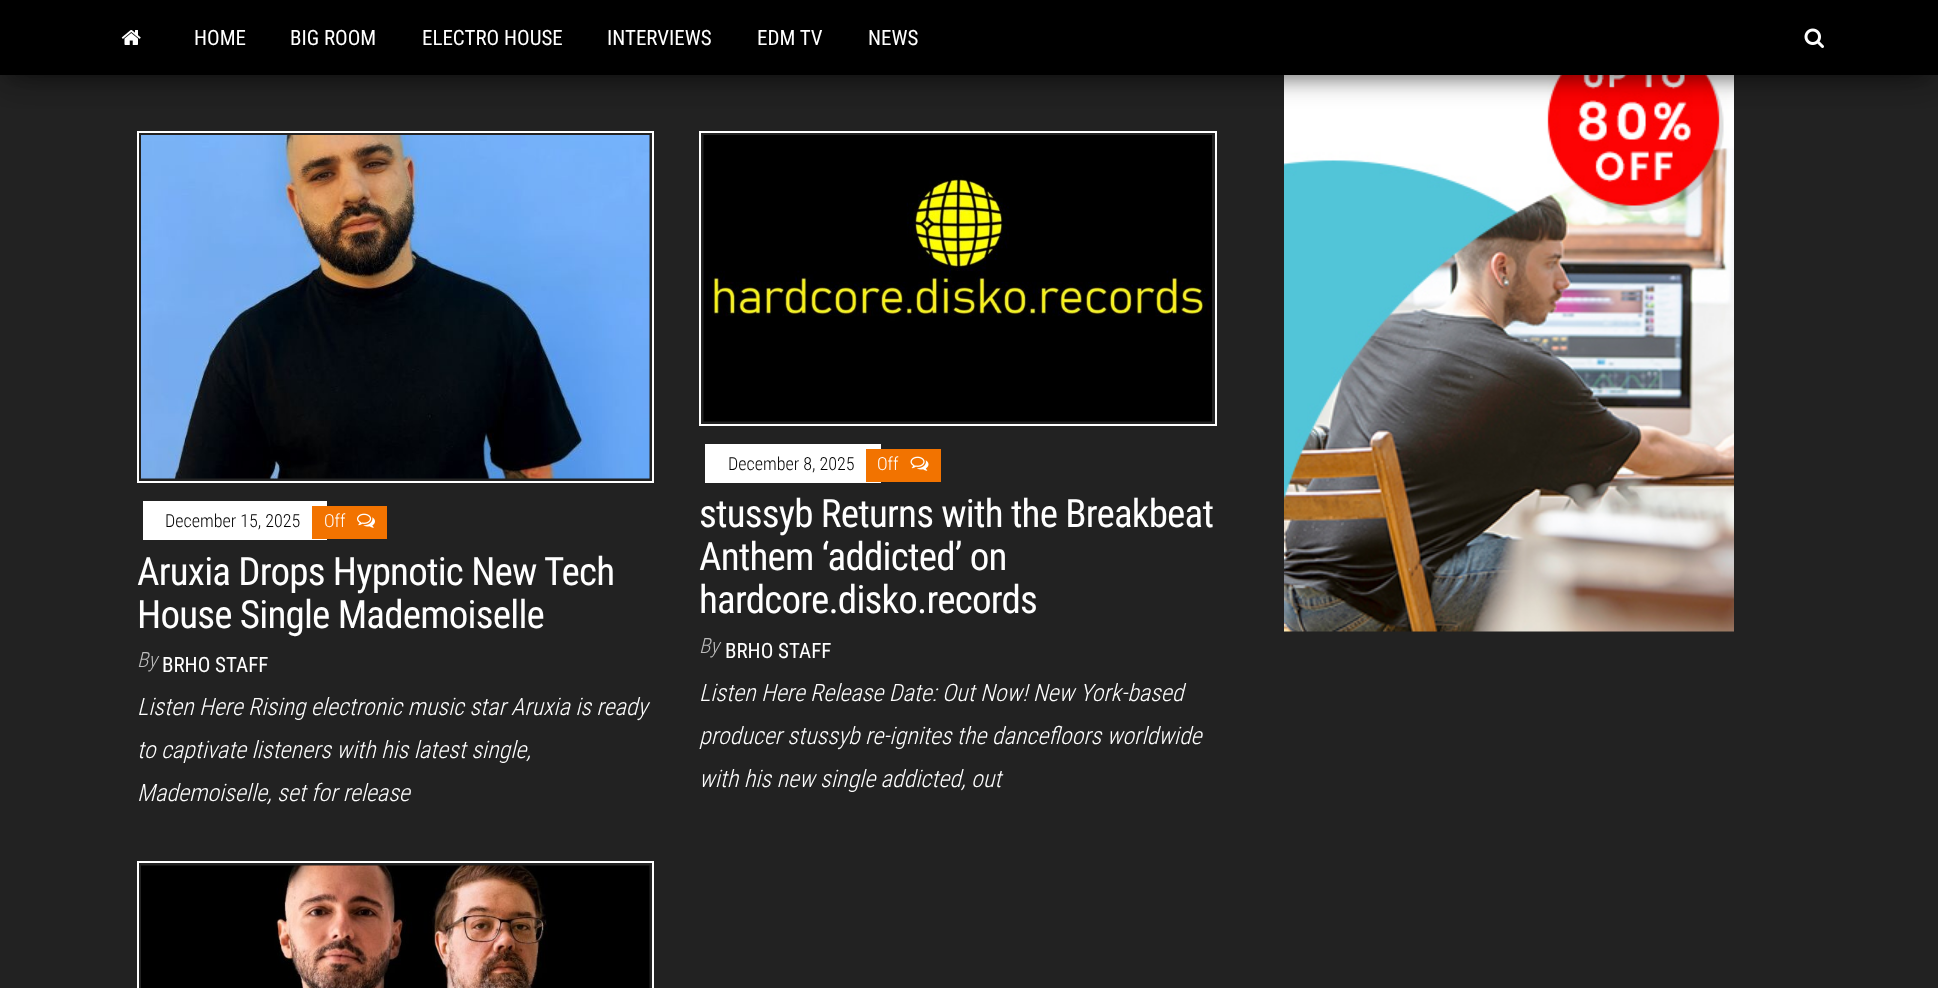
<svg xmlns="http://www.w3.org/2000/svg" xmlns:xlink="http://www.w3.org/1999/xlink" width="1938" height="988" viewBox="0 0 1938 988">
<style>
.cls-1{font:21px Roboto Condensed;fill:#ffffff}
.cls-2{font:300 18px Roboto Condensed;fill:#000000}
.cls-3{font:300 18px Roboto Condensed;fill:#ffffff}
.cls-4{font:39px Roboto Condensed;letter-spacing:-0.8px;fill:#ffffff}
.cls-5{font:italic 300 21px Roboto Condensed;fill:#bdbdbd}
.cls-6{font:italic 300 24px Roboto Condensed;fill:#ffffff}
</style>
<rect width="100%" height="100%" fill="#222222"/>
<image xlink:href="image7.png" x="1284" y="75" width="450" height="557"/>
<rect fill="#000000" fill-opacity="0.2" filter="blur(7.5px)" x="8" y="20" width="1923" height="60"/>
<rect fill="#000000" fill-opacity="0.12" filter="blur(15px)" x="0" y="5" width="1938" height="75"/>
<rect fill="#000000" fill-opacity="0.42" filter="blur(15px)" x="18" y="33" width="1902" height="39"/>
<rect fill="#000000" x="0" y="0" width="1938" height="75"/>
<image xlink:href="image0.png" x="121" y="30" width="20" height="15"/>
<image xlink:href="image1.png" x="1804" y="28" width="20" height="20"/>
<rect fill="none" stroke="#ffffff" stroke-width="2" x="138" y="132" width="515" height="350"/>
<image xlink:href="image2.png" x="141" y="135" width="509" height="344"/>
<rect fill="#ffffff" x="143" y="501" width="184" height="39"/>
<rect fill="#f27300" x="312" y="506" width="75" height="33"/>
<image xlink:href="image3.png" x="357" y="513" width="18" height="15"/>
<rect fill="none" stroke="#ffffff" stroke-width="2" x="700" y="132" width="516" height="293"/>
<image xlink:href="image4.png" x="703" y="135" width="509" height="287"/>
<rect fill="#ffffff" x="705" y="444" width="176" height="39"/>
<rect fill="#f27300" x="866" y="449" width="75" height="33"/>
<image xlink:href="image5.png" x="910" y="456" width="19" height="15"/>
<rect fill="none" stroke="#ffffff" stroke-width="2" x="138" y="862" width="515" height="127"/>
<image xlink:href="image6.png" x="141" y="865" width="509" height="123"/>
<text class="cls-1" x="194" y="45">HOME</text>
<text class="cls-1" x="290" y="45">BIG ROOM</text>
<text class="cls-1" x="422" y="45">ELECTRO HOUSE</text>
<text class="cls-1" x="607" y="45">INTERVIEWS</text>
<text class="cls-1" x="757" y="45">EDM TV</text>
<text class="cls-1" x="868" y="45">NEWS</text>
<text class="cls-2" x="165" y="527">December 15, 2025</text>
<text class="cls-3" x="324" y="527">Off</text>
<text class="cls-4"><tspan x="137" y="585">Aruxia Drops Hypnotic New Tech</tspan><tspan x="137" y="628">House Single Mademoiselle</tspan></text>
<text class="cls-5" x="137" y="667">By</text>
<text class="cls-1" x="162" y="672">BRHO STAFF</text>
<text class="cls-6"><tspan x="137" y="715">Listen Here Rising electronic music star Aruxia is ready</tspan><tspan x="137" y="758">to captivate listeners with his latest single,</tspan><tspan x="137" y="801">Mademoiselle, set for release</tspan></text>
<text class="cls-2" x="728" y="470">December 8, 2025</text>
<text class="cls-3" x="877" y="470">Off</text>
<text class="cls-4"><tspan x="699" y="527">stussyb Returns with the Breakbeat</tspan><tspan x="699" y="570">Anthem ‘addicted’ on</tspan><tspan x="699" y="613">hardcore.disko.records</tspan></text>
<text class="cls-5" x="699" y="653">By</text>
<text class="cls-1" x="725" y="658">BRHO STAFF</text>
<text class="cls-6"><tspan x="699" y="701">Listen Here Release Date: Out Now! New York-based</tspan><tspan x="699" y="744">producer stussyb re-ignites the dancefloors worldwide</tspan><tspan x="699" y="787">with his new single addicted, out</tspan></text>
</svg>
